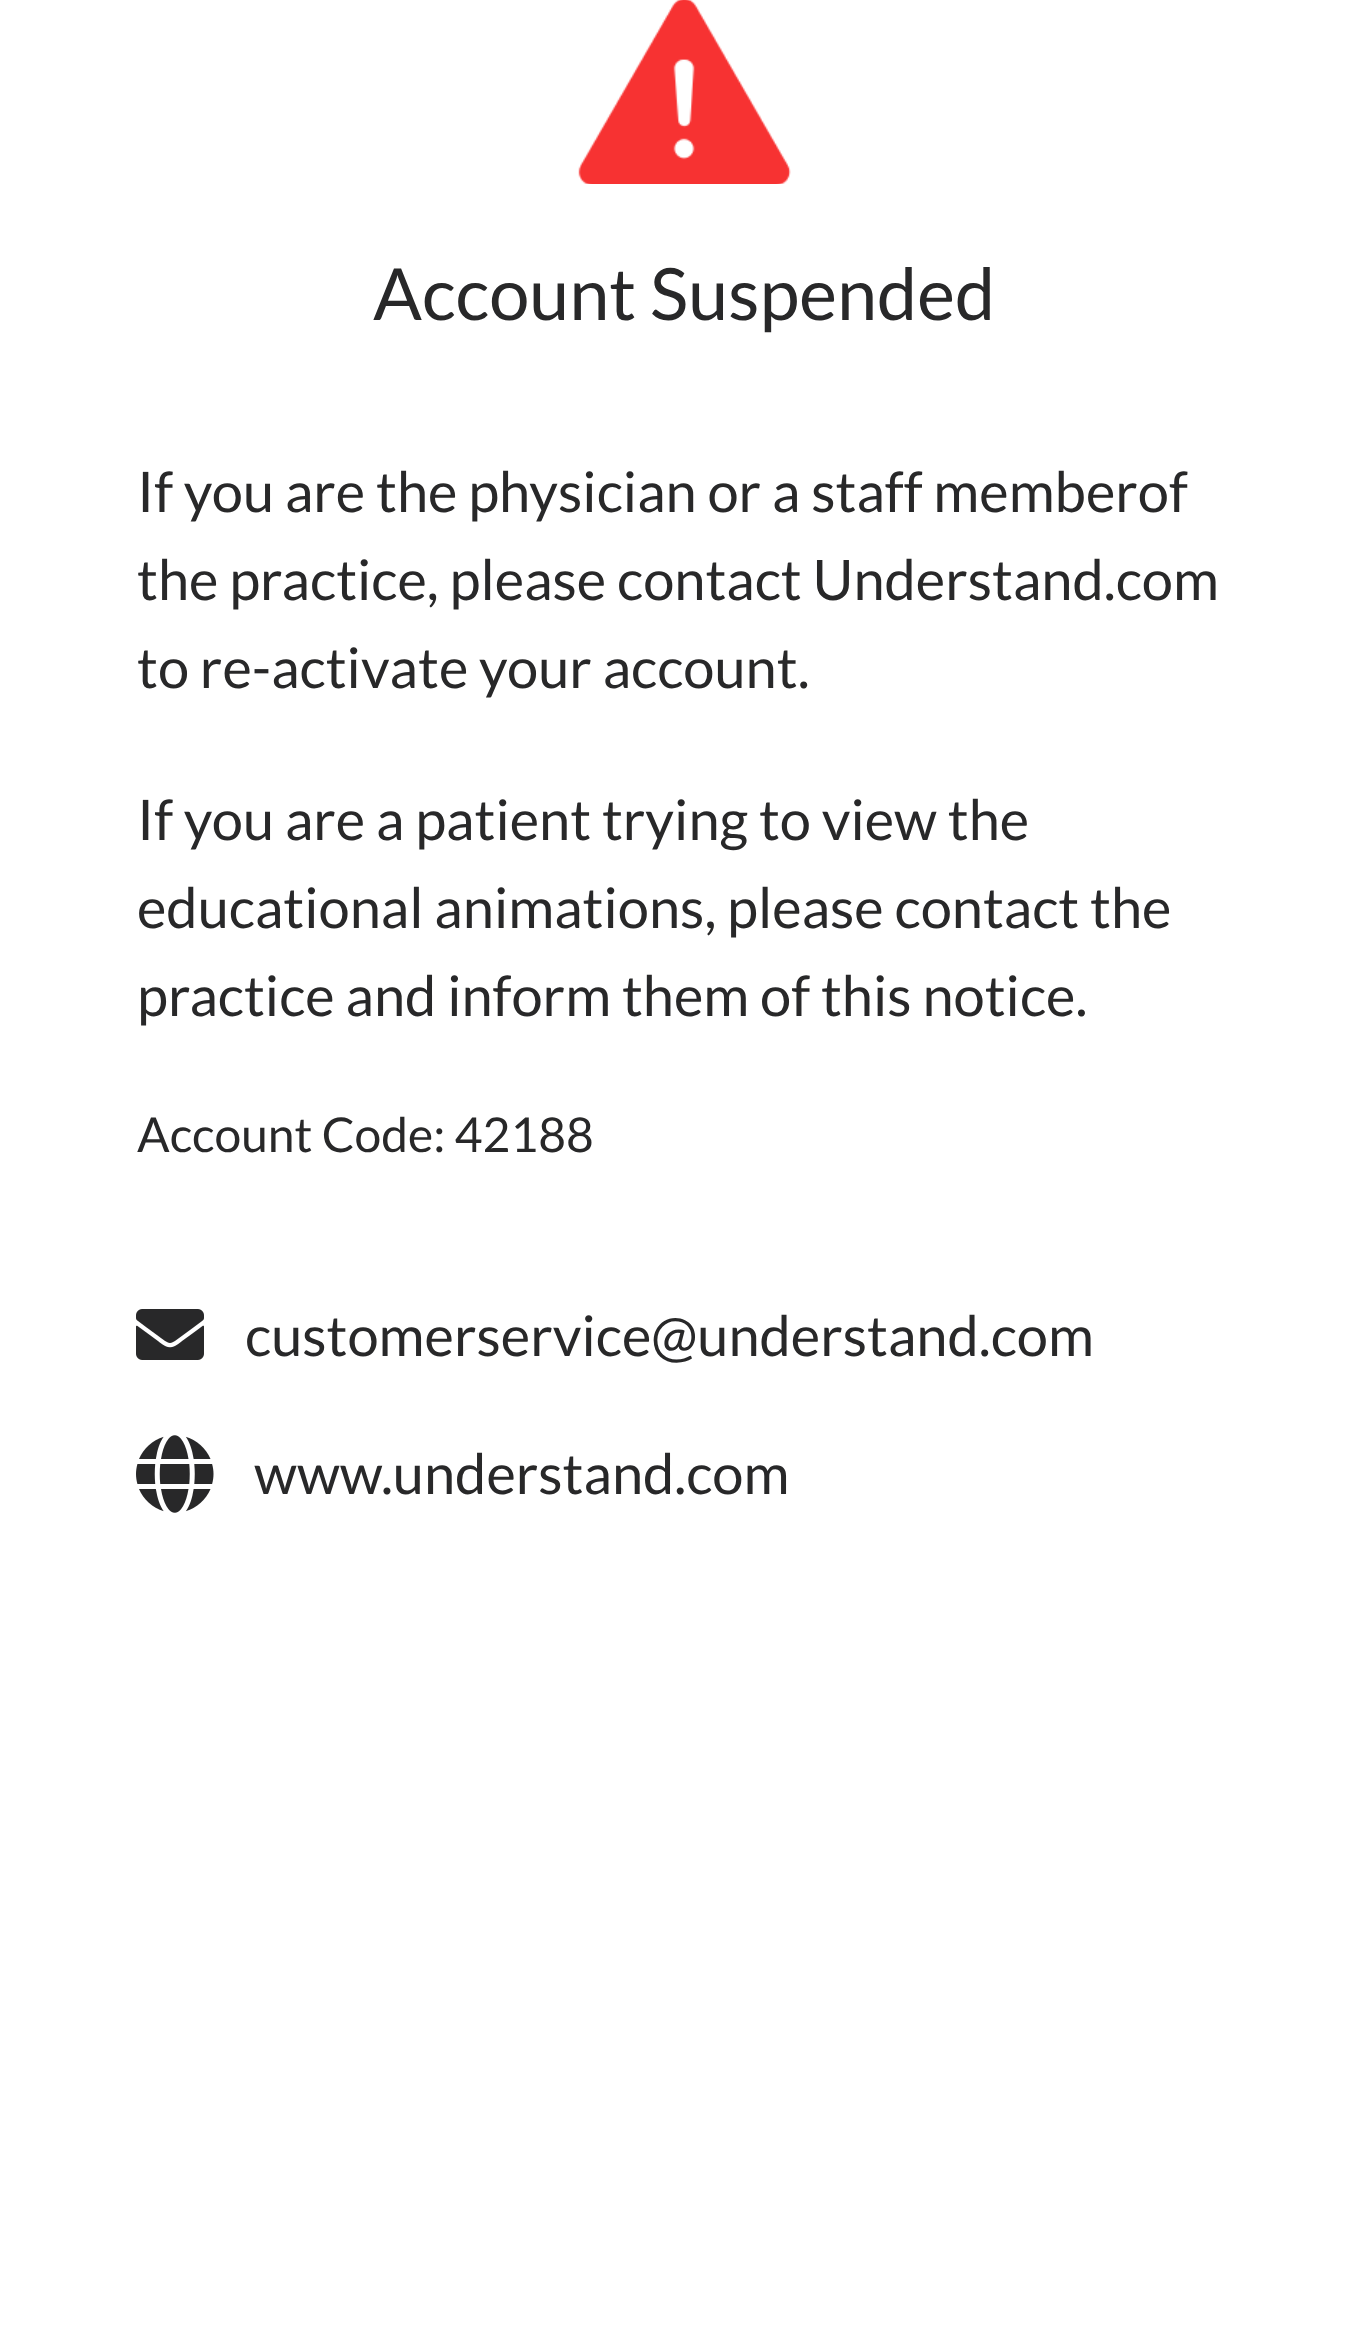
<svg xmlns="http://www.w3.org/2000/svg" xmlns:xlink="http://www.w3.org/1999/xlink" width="1365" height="2346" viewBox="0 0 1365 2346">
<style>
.cls-1{font:72px Lato;fill:#282829}
.cls-2{font:56px Lato;fill:#282829}
.cls-3{font:48px Lato;fill:#282829}
</style>
<rect width="100%" height="100%" fill="#ffffff"/>
<image xlink:href="image0.png" x="578" y="0" width="213" height="184"/>
<image xlink:href="image1.png" x="136" y="1309" width="68" height="51"/>
<image xlink:href="image2.png" x="136" y="1435" width="78" height="78"/>
<text class="cls-1" x="373" y="320">Account Suspended</text>
<text class="cls-2"><tspan x="137" y="512">If you are the physician or a staff memberof</tspan><tspan x="137" y="600">the practice, please contact Understand.com</tspan><tspan x="137" y="688">to re-activate your account.</tspan></text>
<text class="cls-2"><tspan x="137" y="840">If you are a patient trying to view the</tspan><tspan x="137" y="928">educational animations, please contact the</tspan><tspan x="137" y="1016">practice and inform them of this notice.</tspan></text>
<text class="cls-3" x="137" y="1152">Account Code: 42188</text>
<text class="cls-2" x="245" y="1356">customerservice@understand.com</text>
<text class="cls-2" x="254" y="1494">www.understand.com</text>
</svg>
